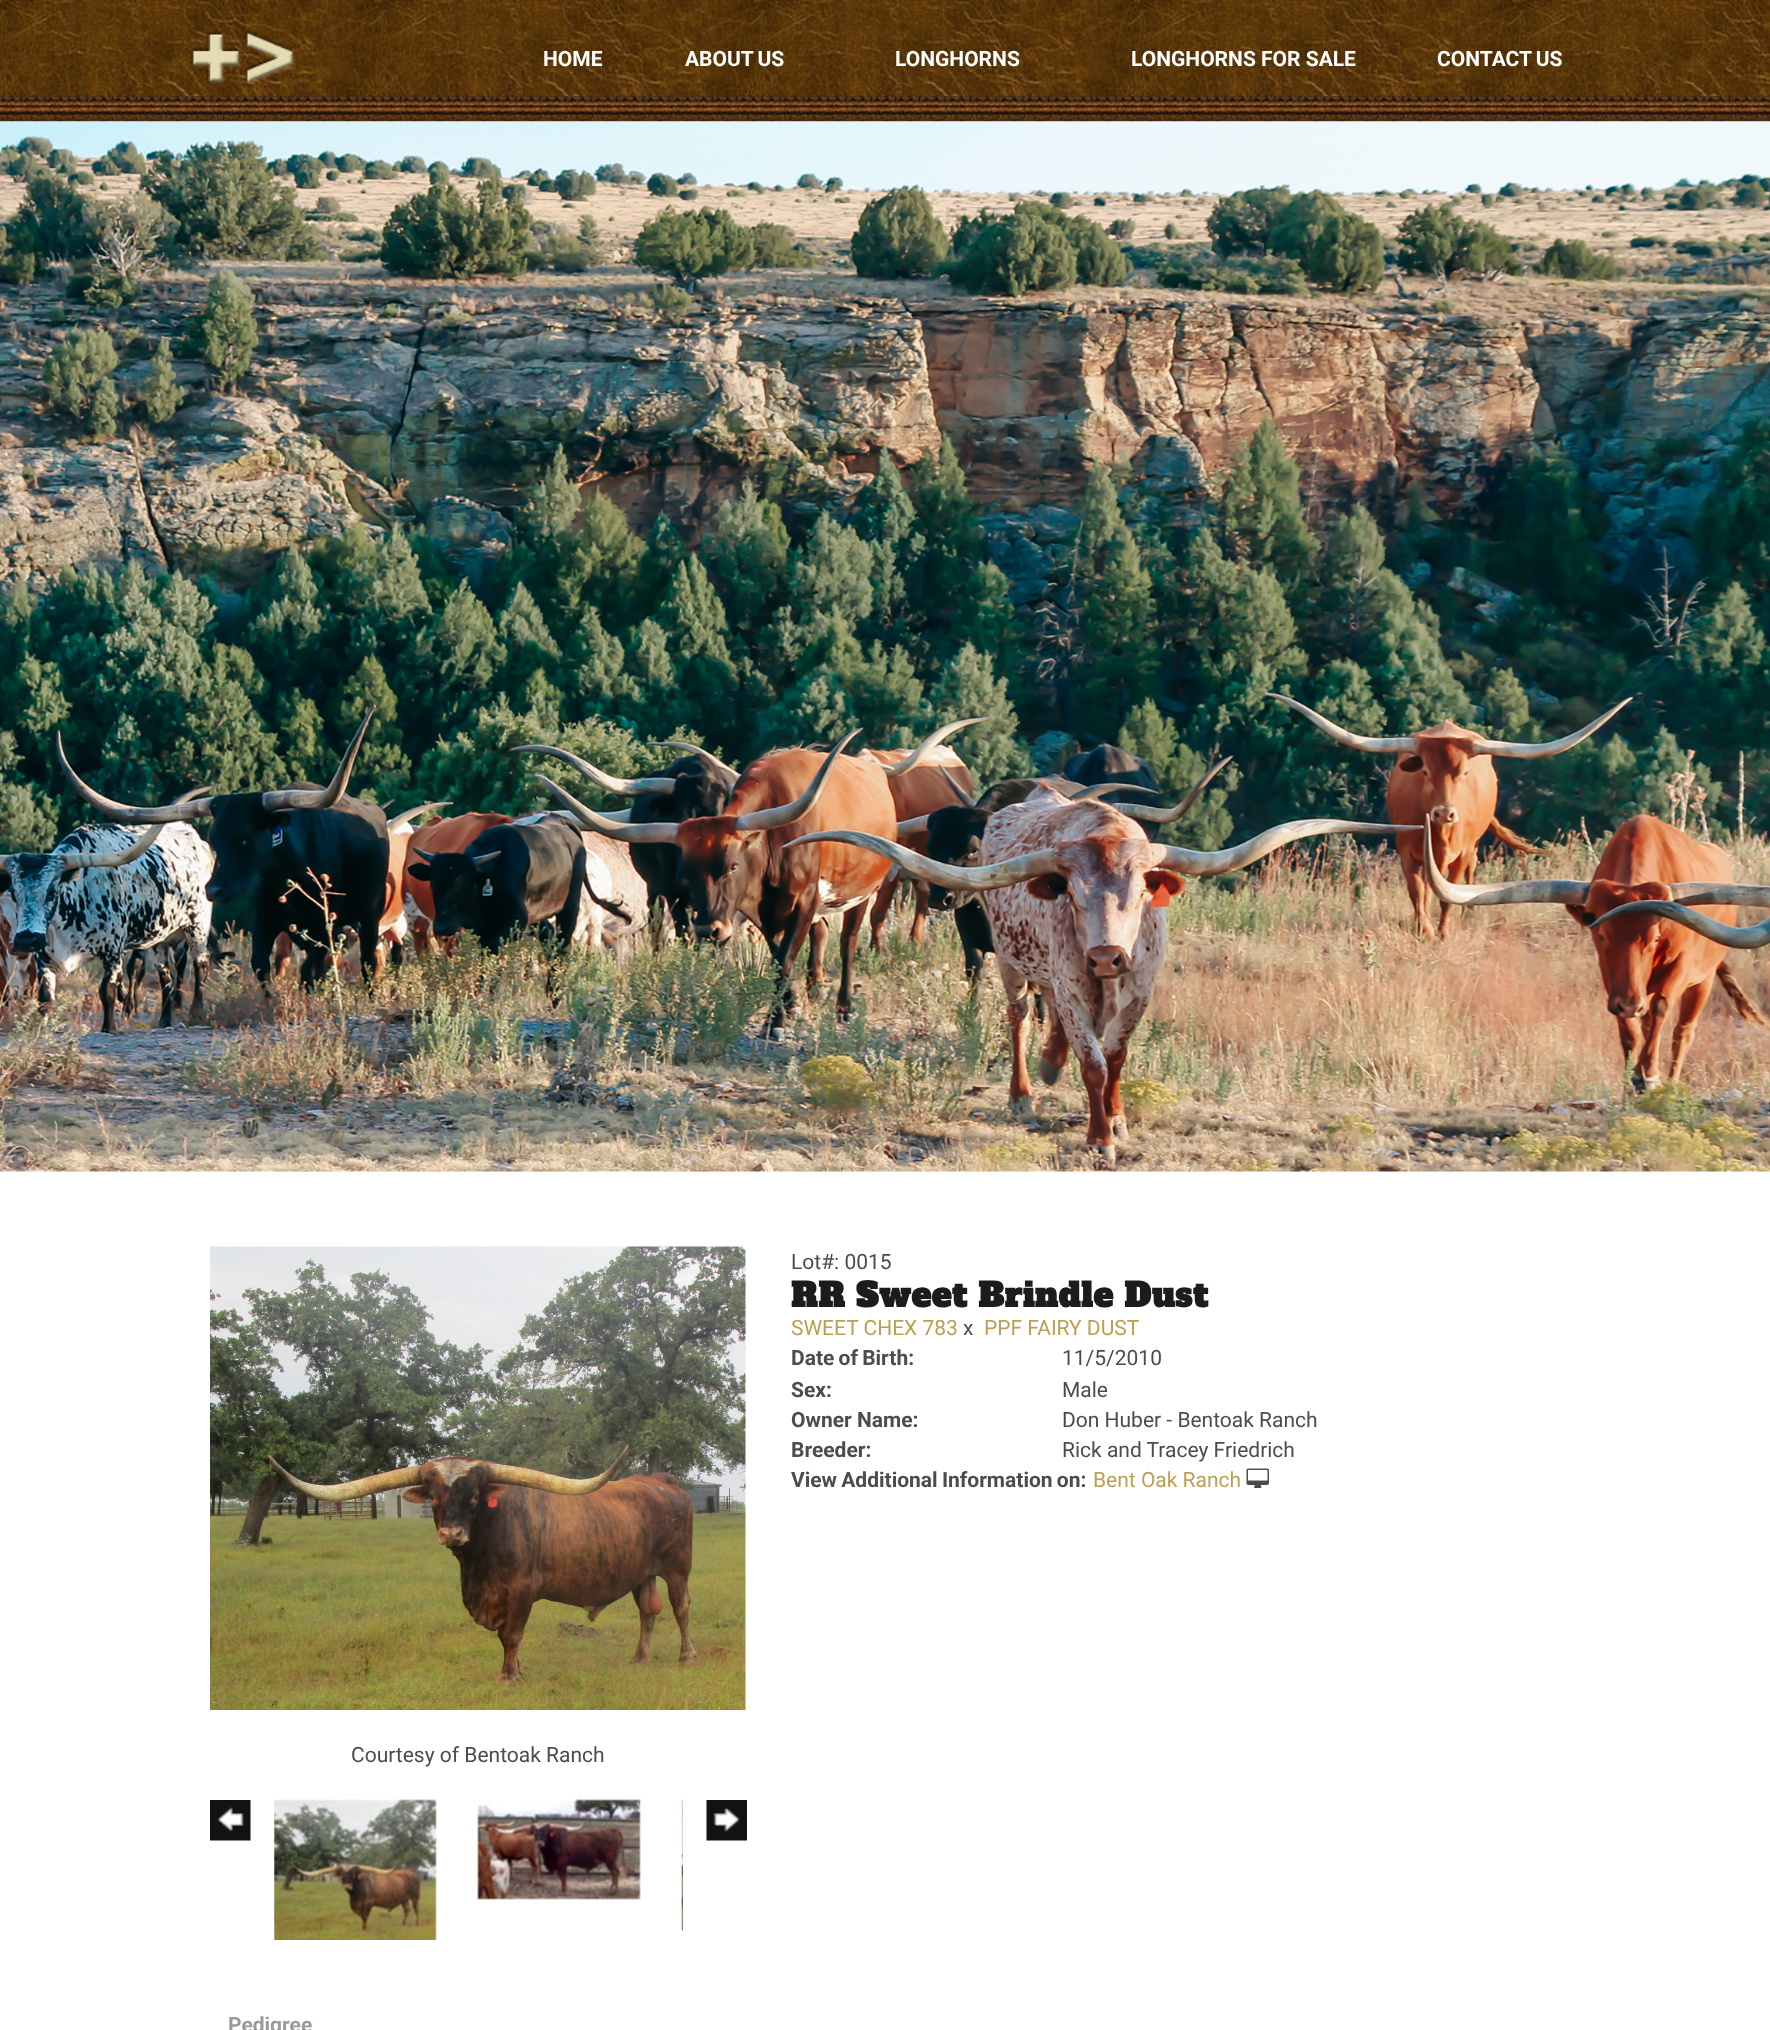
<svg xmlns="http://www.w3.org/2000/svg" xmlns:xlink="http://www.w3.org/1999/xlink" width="1770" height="2030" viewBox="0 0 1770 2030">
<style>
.cls-1{font:bold 21px Roboto;fill:#ffffff}
.cls-2{font:21px Roboto;fill:#4c4c4c}
.cls-3{font:bold 33px Alfa Slab One;letter-spacing:0.75px;fill:#1c1c1c}
.cls-4{font:21px Roboto;fill:#bd9f51}
.cls-5{font:bold 21px Roboto;fill:#4c4c4c}
.cls-6{font:bold 21px Roboto;fill:#9b9999}
</style>
<rect width="100%" height="100%" fill="#ffffff"/>
<image xlink:href="image0.png" x="0" y="0" width="1770" height="122"/>
<image xlink:href="image1.png" x="190" y="31" width="106" height="54"/>
<image xlink:href="image2.png" x="0" y="121" width="1770" height="1051"/>
<image xlink:href="image3.png" x="1246" y="1468" width="23" height="20"/>
<image xlink:href="image4.png" x="210" y="1246" width="536" height="464"/>
<image xlink:href="image5.png" x="210" y="1800" width="41" height="41"/>
<image xlink:href="image6.png" x="274" y="1799" width="163" height="141"/>
<image xlink:href="image7.png" x="477" y="1799" width="164" height="101"/>
<image xlink:href="image8.png" x="681" y="1799" width="2" height="132"/>
<image xlink:href="image9.png" x="706" y="1800" width="41" height="41"/>
<text class="cls-1" x="543" y="66">HOME</text>
<text class="cls-1" x="685" y="66" word-spacing="-1">ABOUT US</text>
<text class="cls-1" x="895" y="66">LONGHORNS</text>
<text class="cls-1" x="1131" y="66">LONGHORNS FOR SALE</text>
<text class="cls-1" x="1437" y="66" word-spacing="-1">CONTACT US</text>
<text class="cls-2" x="791" y="1269">Lot#: 0015</text>
<text class="cls-3" x="791" y="1307">RR Sweet Brindle Dust</text>
<text class="cls-4" x="791" y="1335">SWEET CHEX 783</text>
<text class="cls-2" x="963" y="1335">x</text>
<text class="cls-4" x="984" y="1335">PPF FAIRY DUST</text>
<text class="cls-5" x="791" y="1365" word-spacing="-1">Date of Birth:</text>
<text class="cls-2" x="1062" y="1365">11/5/2010</text>
<text class="cls-5" x="791" y="1397">Sex:</text>
<text class="cls-2" x="1062" y="1397">Male</text>
<text class="cls-5" x="791" y="1427">Owner Name:</text>
<text class="cls-2" x="1062" y="1427">Don Huber - Bentoak Ranch</text>
<text class="cls-5" x="791" y="1457">Breeder:</text>
<text class="cls-2" x="1062" y="1457">Rick and Tracey Friedrich</text>
<text class="cls-5" x="791" y="1487" word-spacing="-1">View Additional Information on:</text>
<text class="cls-4" x="1093" y="1487">Bent Oak Ranch</text>
<text class="cls-2" x="351" y="1762">Courtesy of Bentoak Ranch</text>
<text class="cls-6" x="228" y="2032">Pedigree</text>
</svg>
